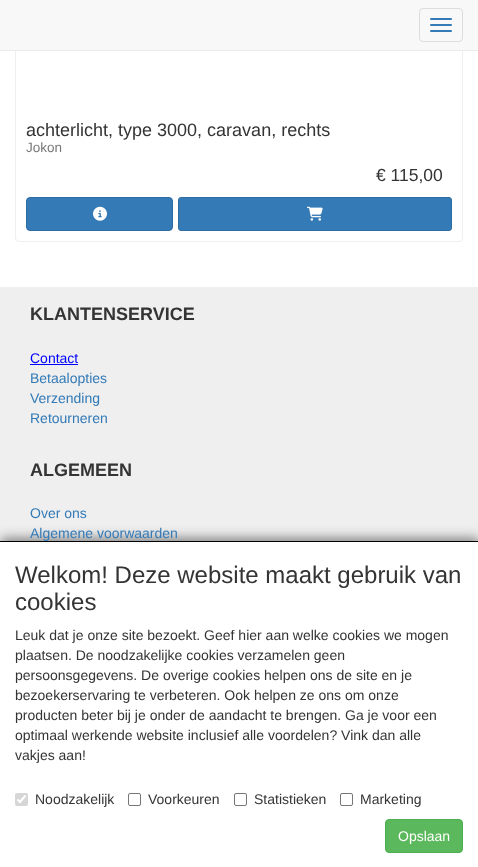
<svg xmlns="http://www.w3.org/2000/svg" xmlns:xlink="http://www.w3.org/1999/xlink" width="478" height="867" viewBox="0 0 478 867">
<style>
.cls-1{font:18px Liberation Sans;fill:#343434}
.cls-2{font:13.5px Liberation Sans;fill:#787878}
.cls-3{font:17.5px Liberation Sans;fill:#343434}
.cls-4{font:bold 18px Liberation Sans;fill:#343434}
.cls-5{font:14px Liberation Sans;fill:#0000ff}
.cls-6{font:14px Liberation Sans;fill:#337ab7}
.cls-7{font:24px Liberation Sans;fill:#343434}
.cls-8{font:14px Liberation Sans;fill:#343434}
.cls-9{font:14px Liberation Sans;fill:#fefefe}
</style>
<rect width="100%" height="100%" fill="#ffffff"/>
<rect fill="none" stroke="#efefef" x="15.5" y="-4.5" width="447" height="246" rx="3.5"/>
<rect fill="#f8f8f8" x="0" y="0" width="478" height="50"/>
<rect fill="#ebebeb" x="0" y="50" width="478" height="1"/>
<rect fill="none" stroke="#dddddd" x="419.5" y="8.5" width="43" height="33" rx="3.5"/>
<rect fill="#337ab7" x="430" y="18" width="22" height="2" rx="1"/>
<rect fill="#337ab7" x="430" y="24" width="22" height="2" rx="1"/>
<rect fill="#337ab7" x="430" y="30" width="22" height="2" rx="1"/>
<rect fill="#337ab7" stroke="#2e6da4" x="26.5" y="197.5" width="146" height="33" rx="3.5"/>
<image xlink:href="image0.png" x="93" y="206" width="14" height="15"/>
<rect fill="#337ab7" stroke="#2e6da4" x="178.5" y="197.5" width="273" height="33" rx="2.5"/>
<image xlink:href="image1.png" x="307" y="206" width="16" height="15"/>
<rect fill="#efefef" x="0" y="287" width="478" height="254"/>
<rect fill="#0000ff" x="30" y="364" width="48" height="1"/>
<rect fill="#808080" filter="blur(6px)" x="1" y="538" width="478" height="326"/>
<rect fill="#ffffff" x="0" y="542" width="478" height="325"/>
<rect fill="#000000" x="0" y="541" width="478" height="1"/>
<rect fill="#d6d6d6" x="15" y="793" width="13" height="13" rx="2"/>
<path fill="none" stroke="#ffffff" stroke-width="2.1" d="M17.5 799.5L20 802L25.5 795.5"/>
<rect fill="none" stroke="#767676" x="128.5" y="793.5" width="12" height="12" rx="1.5"/>
<rect fill="none" stroke="#767676" x="234.5" y="793.5" width="12" height="12" rx="1.5"/>
<rect fill="none" stroke="#767676" x="340.5" y="793.5" width="12" height="12" rx="1.5"/>
<rect fill="#5cb85c" stroke="#4cae4c" x="385.5" y="819.5" width="77" height="33" rx="3.5"/>
<text class="cls-1" x="26" y="136">achterlicht, type 3000, caravan, rechts</text>
<text class="cls-2" x="26" y="152">Jokon</text>
<text class="cls-3" x="376" y="181">€ 115,00</text>
<text class="cls-4" x="30" y="320">KLANTENSERVICE</text>
<text class="cls-5" x="30" y="363">Contact</text>
<text class="cls-6"><tspan x="30" y="383">Betaalopties</tspan><tspan x="30" y="403">Verzending</tspan><tspan x="30" y="423">Retourneren</tspan></text>
<text class="cls-4" x="30" y="476">ALGEMEEN</text>
<text class="cls-6"><tspan x="30" y="518">Over ons</tspan><tspan x="30" y="538">Algemene voorwaarden</tspan></text>
<text class="cls-7"><tspan x="15" y="583">Welkom! Deze website maakt gebruik van</tspan><tspan x="15" y="610">cookies</tspan></text>
<text class="cls-8"><tspan x="15" y="640">Leuk dat je onze site bezoekt. Geef hier aan welke cookies we mogen</tspan><tspan x="15" y="660">plaatsen. De noodzakelijke cookies verzamelen geen</tspan><tspan x="15" y="680">persoonsgegevens. De overige cookies helpen ons de site en je</tspan><tspan x="15" y="700">bezoekerservaring te verbeteren. Ook helpen ze ons om onze</tspan><tspan x="15" y="720">producten beter bij je onder de aandacht te brengen. Ga je voor een</tspan><tspan x="15" y="740">optimaal werkende website inclusief alle voordelen? Vink dan alle</tspan><tspan x="15" y="760">vakjes aan!</tspan></text>
<text class="cls-8" x="35" y="804">Noodzakelijk</text>
<text class="cls-8" x="148" y="804">Voorkeuren</text>
<text class="cls-8" x="254" y="804">Statistieken</text>
<text class="cls-8" x="360" y="804">Marketing</text>
<text class="cls-9" x="398" y="841">Opslaan</text>
</svg>
